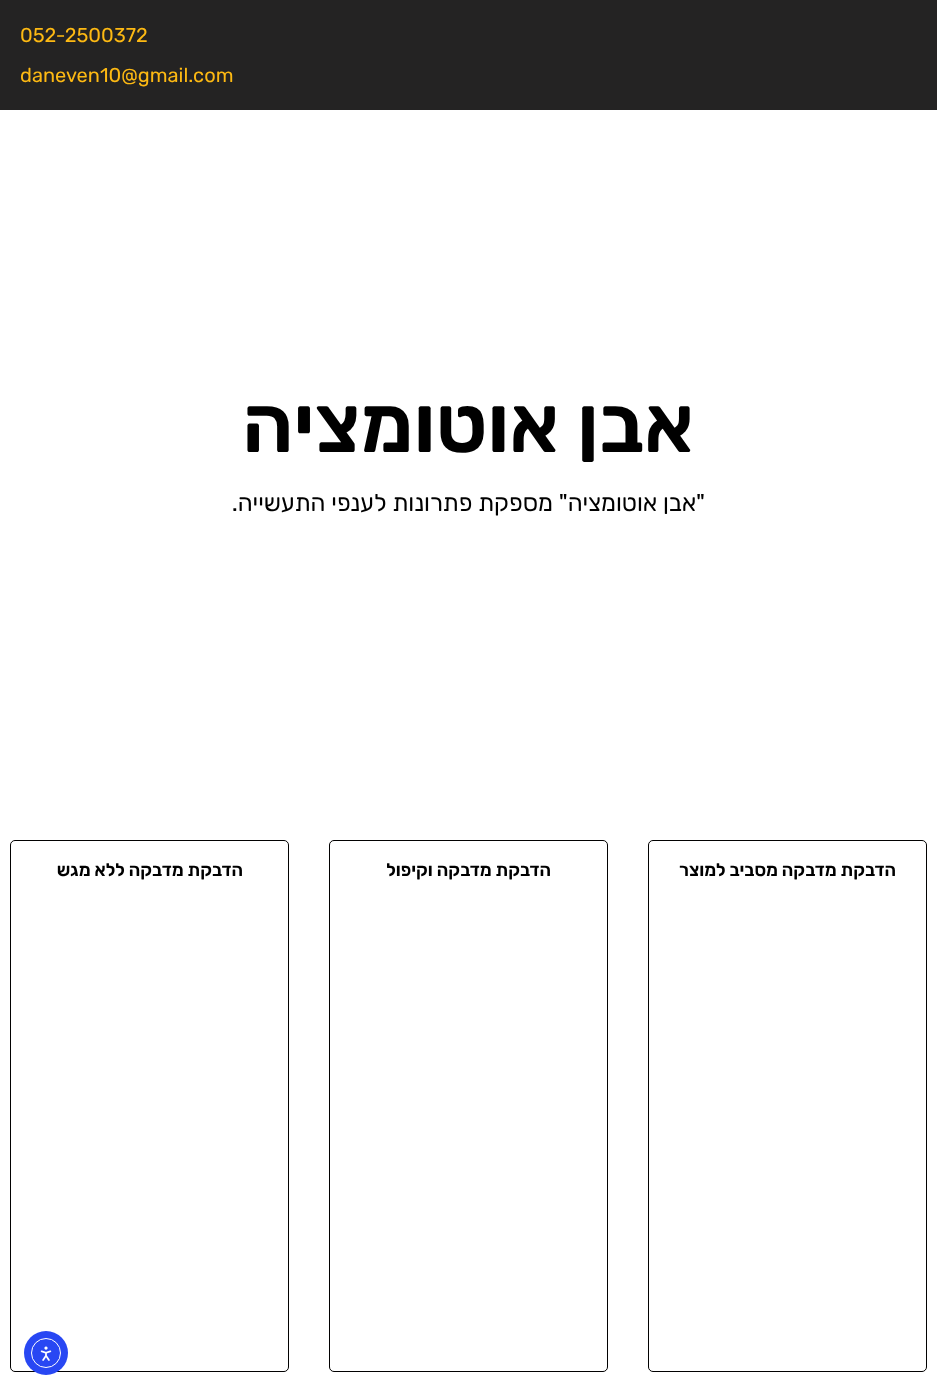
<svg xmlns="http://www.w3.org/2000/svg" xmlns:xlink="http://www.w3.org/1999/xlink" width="937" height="1399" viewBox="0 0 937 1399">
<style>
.cls-1{font:20px Rubik;fill:#fdb913}
.cls-2{font:600 80px Rubik;direction:rtl;fill:#000000}
.cls-3{font:24px Rubik;direction:rtl;fill:#000000}
.cls-4{font:600 18px Rubik;direction:rtl;fill:#000000}
</style>
<rect width="100%" height="100%" fill="#ffffff"/>
<rect fill="#242323" x="0" y="0" width="937" height="110"/>
<rect fill="none" stroke="#020101" x="648.5" y="840.5" width="278" height="531" rx="4.5"/>
<rect fill="none" stroke="#020101" x="329.5" y="840.5" width="278" height="531" rx="4.5"/>
<rect fill="none" stroke="#020101" x="10.5" y="840.5" width="278" height="531" rx="4.5"/>
<circle fill="#2847f3" cx="46" cy="1353" r="22"/>
<circle fill="none" stroke="#ffffff" cx="46" cy="1353" r="14.5"/>
<image xlink:href="image0.png" x="40" y="1346" width="12" height="15"/>
<text class="cls-1" x="20" y="42">052-2500372</text>
<text class="cls-1" x="20" y="82">daneven10@gmail.com</text>
<text class="cls-2" x="694" y="452">אבן אוטומציה</text>
<text class="cls-3" x="705" y="511">"אבן אוטומציה" מספקת פתרונות לענפי התעשייה.</text>
<text class="cls-4" x="896" y="876">הדבקת מדבקה מסביב למוצר</text>
<text class="cls-4" x="551" y="876">הדבקת מדבקה וקיפול</text>
<text class="cls-4" x="243" y="876">הדבקת מדבקה ללא מגש</text>
</svg>
